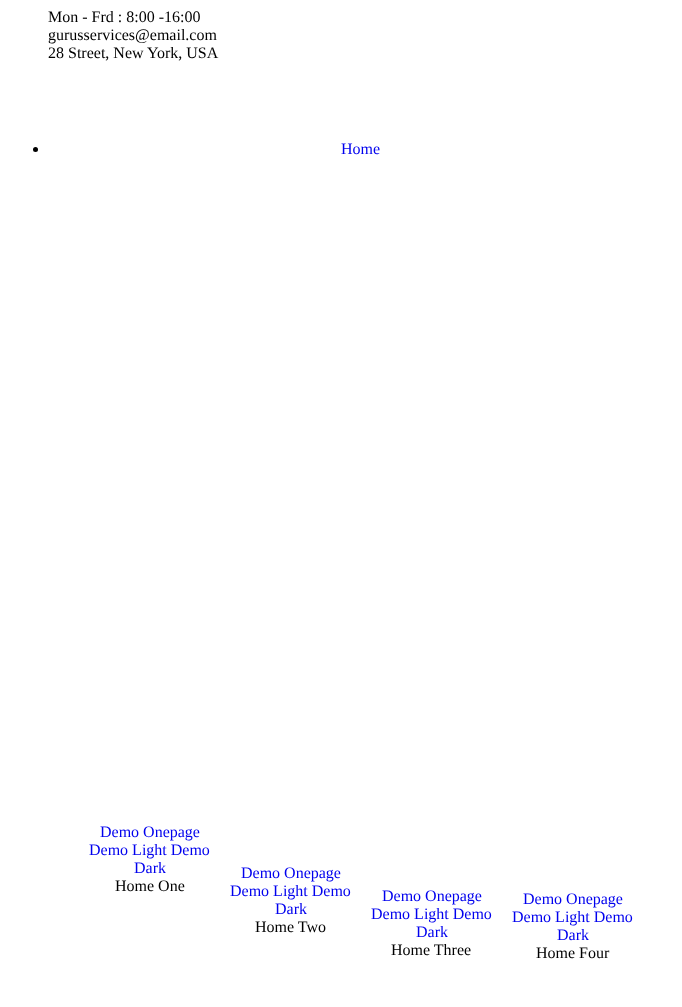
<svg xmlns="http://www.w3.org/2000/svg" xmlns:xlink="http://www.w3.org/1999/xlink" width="682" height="1007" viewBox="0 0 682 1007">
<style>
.cls-1{font:16px Liberation Serif;fill:#000000}
.cls-2{font:16px Liberation Serif;fill:#0000ee}
</style>
<rect width="100%" height="100%" fill="#ffffff"/>
<circle fill="#000000" cx="35.5" cy="149.5" r="2.5"/>
<text class="cls-1"><tspan x="48" y="22">Mon - Frd : 8:00 -16:00</tspan><tspan x="48" y="40">gurusservices@email.com</tspan><tspan x="48" y="58">28 Street, New York, USA</tspan></text>
<text class="cls-2" x="341" y="154">Home</text>
<text class="cls-2" x="100" y="837">Demo Onepage</text>
<text class="cls-2" x="89" y="855">Demo Light Demo</text>
<text class="cls-2" x="134" y="873">Dark</text>
<text class="cls-1" x="115" y="891">Home One</text>
<text class="cls-2" x="241" y="878">Demo Onepage</text>
<text class="cls-2" x="230" y="896">Demo Light Demo</text>
<text class="cls-2" x="275" y="914">Dark</text>
<text class="cls-1" x="255" y="932">Home Two</text>
<text class="cls-2" x="382" y="901">Demo Onepage</text>
<text class="cls-2" x="371" y="919">Demo Light Demo</text>
<text class="cls-2" x="416" y="937">Dark</text>
<text class="cls-1" x="391" y="955">Home Three</text>
<text class="cls-2" x="523" y="904">Demo Onepage</text>
<text class="cls-2" x="512" y="922">Demo Light Demo</text>
<text class="cls-2" x="557" y="940">Dark</text>
<text class="cls-1" x="536" y="958">Home Four</text>
</svg>
